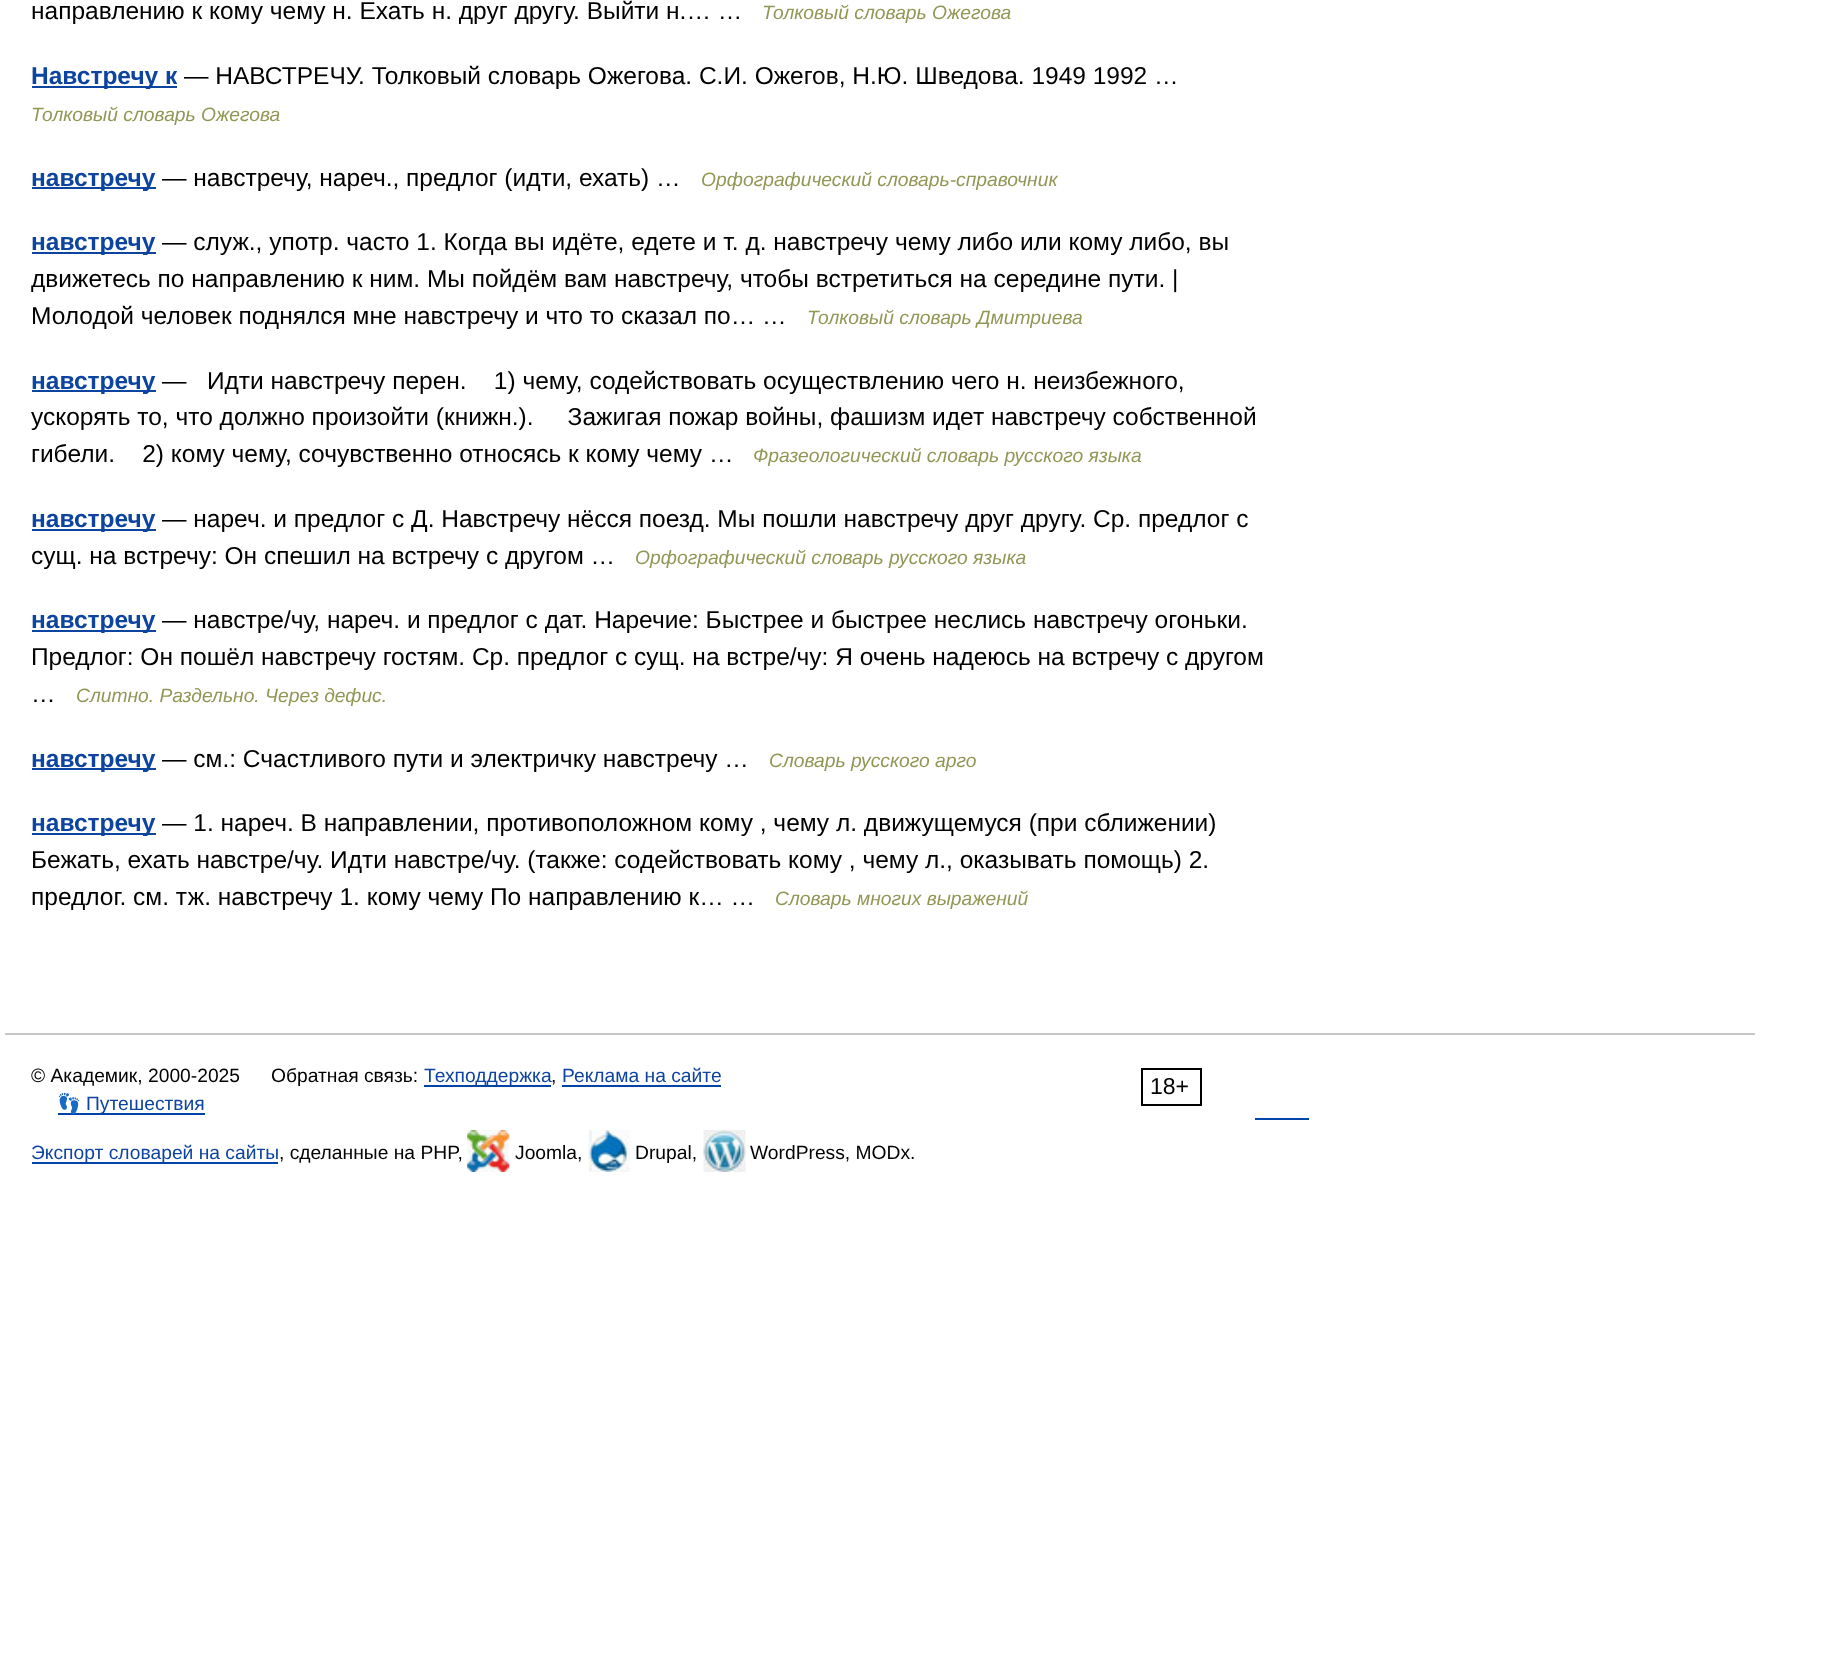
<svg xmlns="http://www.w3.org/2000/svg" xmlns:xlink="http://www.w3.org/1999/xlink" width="1845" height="1680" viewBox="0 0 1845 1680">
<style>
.cls-1{font:24.5px Liberation Sans;fill:#000000}
.cls-2{font:italic 19.25px Liberation Sans;fill:#939756}
.cls-3{font:bold 24.5px Liberation Sans;fill:#0d44a0}
.cls-4{font:19.25px Liberation Sans;fill:#000000}
.cls-5{font:19.25px Liberation Sans;fill:#0d44a0}
.cls-6{font:23px Liberation Sans;fill:#000000}
.cls-7{font:19.25px Noto Color Emoji;fill:#0d44a0}
</style>
<rect width="100%" height="100%" fill="#ffffff"/>
<rect fill="#0d44a0" x="32" y="86" width="145" height="2"/>
<rect fill="#0d44a0" x="32" y="187" width="124" height="2"/>
<rect fill="#0d44a0" x="32" y="252" width="124" height="2"/>
<rect fill="#0d44a0" x="32" y="390" width="124" height="2"/>
<rect fill="#0d44a0" x="32" y="529" width="124" height="2"/>
<rect fill="#0d44a0" x="32" y="630" width="124" height="2"/>
<rect fill="#0d44a0" x="32" y="768" width="124" height="2"/>
<rect fill="#0d44a0" x="32" y="833" width="124" height="2"/>
<rect fill="#c7c7c7" x="5" y="1033" width="1750" height="2"/>
<rect fill="#0044aa" x="424" y="1085" width="127" height="2"/>
<rect fill="#0044aa" x="562" y="1085" width="159" height="2"/>
<rect fill="none" stroke="#000000" stroke-width="2" x="1142" y="1069" width="59" height="36"/>
<rect fill="#0044aa" x="58" y="1113" width="147" height="2"/>
<rect fill="#0044aa" x="1255" y="1118" width="54" height="2"/>
<rect fill="#0044aa" x="32" y="1162" width="246" height="2"/>
<image xlink:href="image0.png" x="467" y="1130" width="43" height="42"/>
<image xlink:href="image1.png" x="588" y="1130" width="42" height="42"/>
<image xlink:href="image2.png" x="703" y="1130" width="43" height="42"/>
<text class="cls-1" x="31" y="19">направлению к кому чему н. Ехать н. друг другу. Выйти н.… …</text>
<text class="cls-2" x="762" y="19">Толковый словарь Ожегова</text>
<text class="cls-3" x="31" y="84">Навстречу к</text>
<text class="cls-1" x="184" y="84">— НАВСТРЕЧУ. Толковый словарь Ожегова. С.И. Ожегов, Н.Ю. Шведова. 1949 1992 …</text>
<text class="cls-2" x="31" y="121">Толковый словарь Ожегова</text>
<text class="cls-3" x="31" y="186">навстречу</text>
<text class="cls-1" x="162" y="186">— навстречу, нареч., предлог (идти, ехать) …</text>
<text class="cls-2" x="701" y="186">Орфографический словарь-справочник</text>
<text class="cls-3" x="31" y="250">навстречу</text>
<text class="cls-1" x="162" y="250">— служ., употр. часто 1. Когда вы идёте, едете и т. д. навстречу чему либо или кому либо, вы</text>
<text class="cls-1"><tspan x="31" y="287">движетесь по направлению к ним. Мы пойдём вам навстречу, чтобы встретиться на середине пути. |</tspan><tspan x="31" y="324">Молодой человек поднялся мне навстречу и что то сказал по… …</tspan></text>
<text class="cls-2" x="807" y="324">Толковый словарь Дмитриева</text>
<text class="cls-3" x="31" y="389">навстречу</text>
<text class="cls-1" xml:space="preserve" x="162" y="389">—   Идти навстречу перен.    1) чему, содействовать осуществлению чего н. неизбежного,</text>
<text class="cls-1" xml:space="preserve"><tspan x="31" y="425">ускорять то, что должно произойти (книжн.).     Зажигая пожар войны, фашизм идет навстречу собственной</tspan><tspan x="31" y="462">гибели.    2) кому чему, сочувственно относясь к кому чему …</tspan></text>
<text class="cls-2" x="753" y="462">Фразеологический словарь русского языка</text>
<text class="cls-3" x="31" y="527">навстречу</text>
<text class="cls-1" x="162" y="527">— нареч. и предлог с Д. Навстречу нёсся поезд. Мы пошли навстречу друг другу. Ср. предлог с</text>
<text class="cls-1" x="31" y="564">сущ. на встречу: Он спешил на встречу с другом …</text>
<text class="cls-2" x="635" y="564">Орфографический словарь русского языка</text>
<text class="cls-3" x="31" y="628">навстречу</text>
<text class="cls-1" x="162" y="628">— навстре/чу, нареч. и предлог с дат. Наречие: Быстрее и быстрее неслись навстречу огоньки.</text>
<text class="cls-1"><tspan x="31" y="665">Предлог: Он пошёл навстречу гостям. Ср. предлог с сущ. на встре/чу: Я очень надеюсь на встречу с другом</tspan><tspan x="31" y="702">…</tspan></text>
<text class="cls-2" x="76" y="702">Слитно. Раздельно. Через дефис.</text>
<text class="cls-3" x="31" y="767">навстречу</text>
<text class="cls-1" x="162" y="767">— см.: Счастливого пути и электричку навстречу …</text>
<text class="cls-2" x="769" y="767">Словарь русского арго</text>
<text class="cls-3" x="31" y="831">навстречу</text>
<text class="cls-1" x="162" y="831">— 1. нареч. В направлении, противоположном кому , чему л. движущемуся (при сближении)</text>
<text class="cls-1"><tspan x="31" y="868">Бежать, ехать навстре/чу. Идти навстре/чу. (также: содействовать кому , чему л., оказывать помощь) 2.</tspan><tspan x="31" y="905">предлог. см. тж. навстречу 1. кому чему По направлению к… …</tspan></text>
<text class="cls-2" x="775" y="905">Словарь многих выражений</text>
<text class="cls-4" x="31" y="1082">© Академик, 2000-2025</text>
<text class="cls-4" x="271" y="1082">Обратная связь:</text>
<text class="cls-5" x="424" y="1082">Техподдержка</text>
<text class="cls-4" x="551" y="1082">,</text>
<text class="cls-5" x="562" y="1082">Реклама на сайте</text>
<text class="cls-6" x="1150" y="1094">18+</text>
<text class="cls-7" x="57" y="1110">👣</text>
<text class="cls-5" x="86" y="1110">Путешествия</text>
<text class="cls-5" x="31" y="1159">Экспорт словарей на сайты</text>
<text class="cls-4" x="279" y="1159">, сделанные на PHP,</text>
<text class="cls-4" x="515" y="1159">Joomla,</text>
<text class="cls-4" x="635" y="1159">Drupal,</text>
<text class="cls-4" x="750" y="1159">WordPress, MODx.</text>
</svg>
